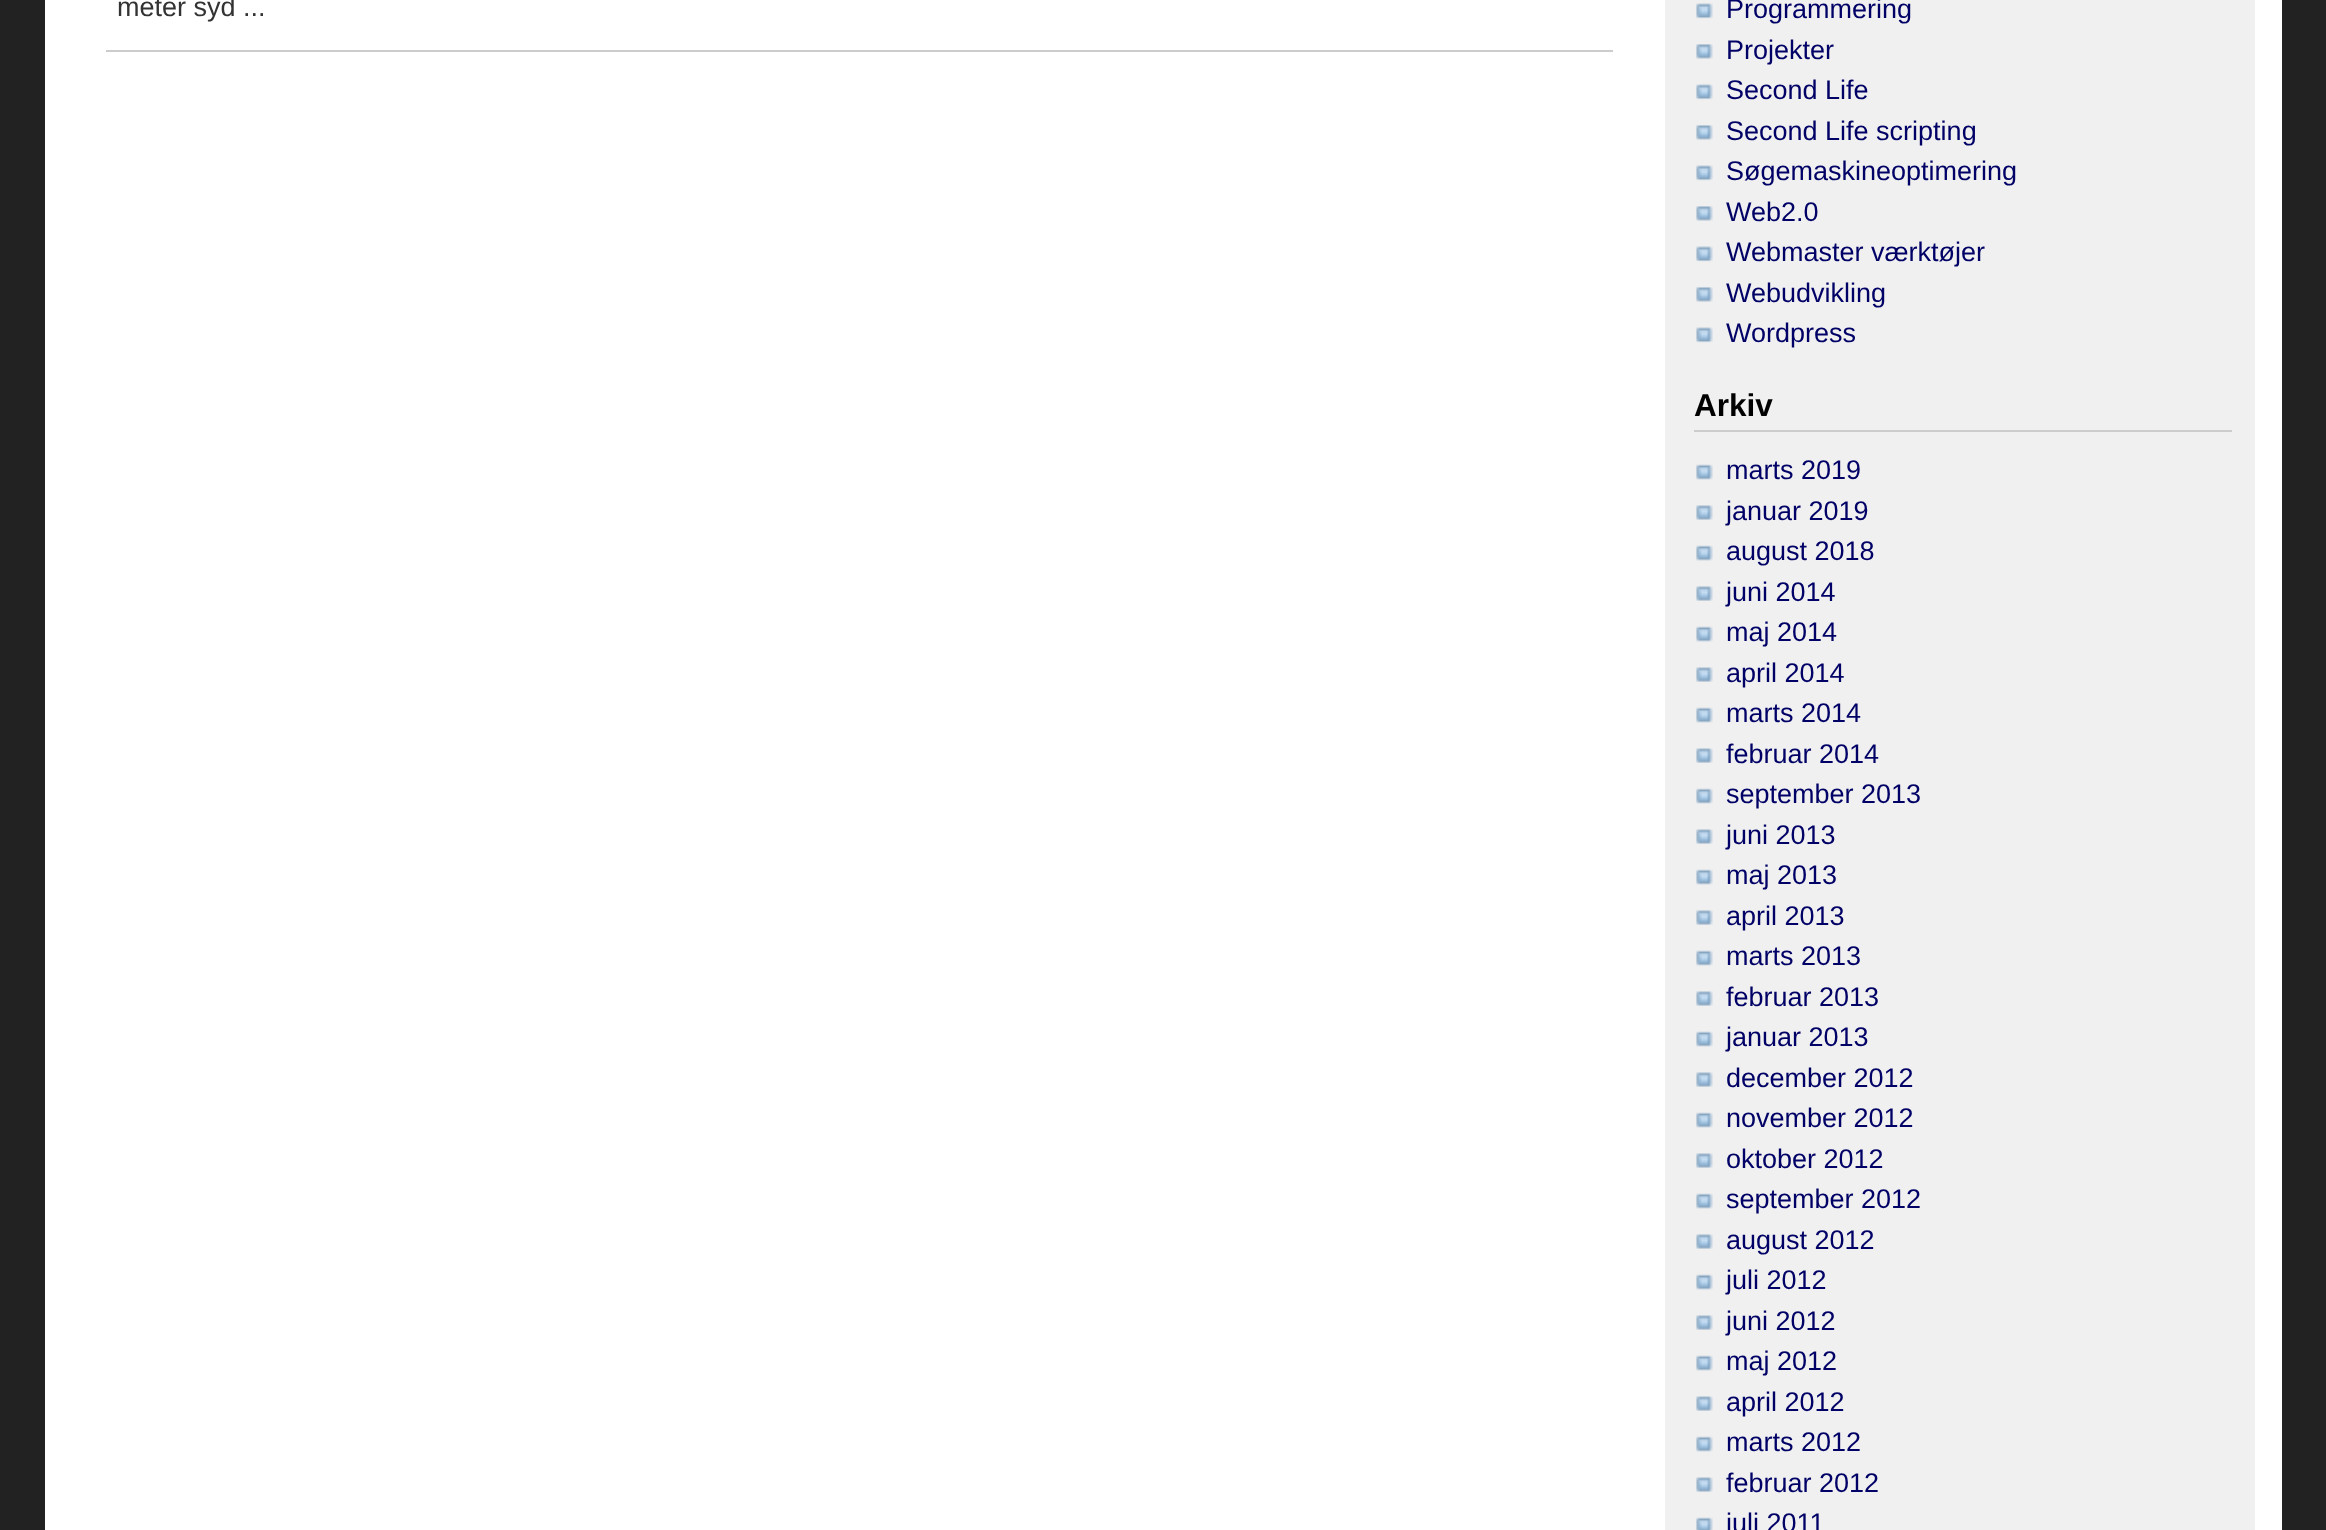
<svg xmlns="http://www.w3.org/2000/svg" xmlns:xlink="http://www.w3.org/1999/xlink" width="2326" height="1530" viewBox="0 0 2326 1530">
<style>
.cls-1{font:27px Liberation Sans;fill:#333333}
.cls-2{font:27px Liberation Sans;fill:#000066}
.cls-3{font:bold 31.5px Liberation Sans;fill:#000000}
</style>
<rect width="100%" height="100%" fill="#222222"/>
<rect fill="#ffffff" x="45" y="0" width="2237" height="1530"/>
<rect fill="#cccccc" x="106" y="50" width="1507" height="2"/>
<rect fill="#f0f0f0" x="1665" y="0" width="590" height="1530"/>
<image xlink:href="image0.png" x="1696" y="3" width="17" height="16"/>
<image xlink:href="image1.png" x="1696" y="44" width="17" height="15"/>
<image xlink:href="image0.png" x="1696" y="84" width="17" height="16"/>
<image xlink:href="image1.png" x="1696" y="125" width="17" height="15"/>
<image xlink:href="image0.png" x="1696" y="165" width="17" height="16"/>
<image xlink:href="image1.png" x="1696" y="206" width="17" height="15"/>
<image xlink:href="image2.png" x="1696" y="246" width="17" height="16"/>
<image xlink:href="image1.png" x="1696" y="287" width="17" height="15"/>
<image xlink:href="image0.png" x="1696" y="327" width="17" height="16"/>
<rect fill="#cccccc" x="1694" y="430" width="538" height="2"/>
<image xlink:href="image3.png" x="1696" y="464" width="17" height="16"/>
<image xlink:href="image4.png" x="1696" y="505" width="17" height="15"/>
<image xlink:href="image3.png" x="1696" y="545" width="17" height="16"/>
<image xlink:href="image4.png" x="1696" y="586" width="17" height="15"/>
<image xlink:href="image3.png" x="1696" y="626" width="17" height="16"/>
<image xlink:href="image4.png" x="1696" y="667" width="17" height="15"/>
<image xlink:href="image3.png" x="1696" y="707" width="17" height="16"/>
<image xlink:href="image4.png" x="1696" y="748" width="17" height="15"/>
<image xlink:href="image3.png" x="1696" y="788" width="17" height="16"/>
<image xlink:href="image4.png" x="1696" y="829" width="17" height="15"/>
<image xlink:href="image3.png" x="1696" y="869" width="17" height="16"/>
<image xlink:href="image4.png" x="1696" y="910" width="17" height="15"/>
<image xlink:href="image3.png" x="1696" y="950" width="17" height="16"/>
<image xlink:href="image4.png" x="1696" y="991" width="17" height="15"/>
<image xlink:href="image3.png" x="1696" y="1031" width="17" height="16"/>
<image xlink:href="image4.png" x="1696" y="1072" width="17" height="15"/>
<image xlink:href="image3.png" x="1696" y="1112" width="17" height="16"/>
<image xlink:href="image4.png" x="1696" y="1153" width="17" height="15"/>
<image xlink:href="image3.png" x="1696" y="1193" width="17" height="16"/>
<image xlink:href="image4.png" x="1696" y="1234" width="17" height="15"/>
<image xlink:href="image5.png" x="1696" y="1274" width="17" height="16"/>
<image xlink:href="image4.png" x="1696" y="1315" width="17" height="15"/>
<image xlink:href="image3.png" x="1696" y="1355" width="17" height="16"/>
<image xlink:href="image4.png" x="1696" y="1396" width="17" height="15"/>
<image xlink:href="image3.png" x="1696" y="1436" width="17" height="16"/>
<image xlink:href="image4.png" x="1696" y="1477" width="17" height="15"/>
<image xlink:href="image6.png" x="1696" y="1517" width="17" height="13"/>
<text class="cls-1" x="117" y="16">meter syd ...</text>
<text class="cls-2"><tspan x="1726" y="18">Programmering</tspan><tspan x="1726" y="59">Projekter</tspan><tspan x="1726" y="99">Second Life</tspan><tspan x="1726" y="140">Second Life scripting</tspan><tspan x="1726" y="180">Søgemaskineoptimering</tspan><tspan x="1726" y="221">Web2.0</tspan><tspan x="1726" y="261">Webmaster værktøjer</tspan><tspan x="1726" y="302">Webudvikling</tspan><tspan x="1726" y="342">Wordpress</tspan></text>
<text class="cls-3" x="1694" y="416">Arkiv</text>
<text class="cls-2"><tspan x="1726" y="479">marts 2019</tspan><tspan x="1726" y="520">januar 2019</tspan><tspan x="1726" y="560">august 2018</tspan><tspan x="1726" y="601">juni 2014</tspan><tspan x="1726" y="641">maj 2014</tspan><tspan x="1726" y="682">april 2014</tspan><tspan x="1726" y="722">marts 2014</tspan><tspan x="1726" y="763">februar 2014</tspan><tspan x="1726" y="803">september 2013</tspan><tspan x="1726" y="844">juni 2013</tspan><tspan x="1726" y="884">maj 2013</tspan><tspan x="1726" y="925">april 2013</tspan><tspan x="1726" y="965">marts 2013</tspan><tspan x="1726" y="1006">februar 2013</tspan><tspan x="1726" y="1046">januar 2013</tspan><tspan x="1726" y="1087">december 2012</tspan><tspan x="1726" y="1127">november 2012</tspan><tspan x="1726" y="1168">oktober 2012</tspan><tspan x="1726" y="1208">september 2012</tspan><tspan x="1726" y="1249">august 2012</tspan><tspan x="1726" y="1289">juli 2012</tspan><tspan x="1726" y="1330">juni 2012</tspan><tspan x="1726" y="1370">maj 2012</tspan><tspan x="1726" y="1411">april 2012</tspan><tspan x="1726" y="1451">marts 2012</tspan><tspan x="1726" y="1492">februar 2012</tspan><tspan x="1726" y="1532">juli 2011</tspan></text>
</svg>
